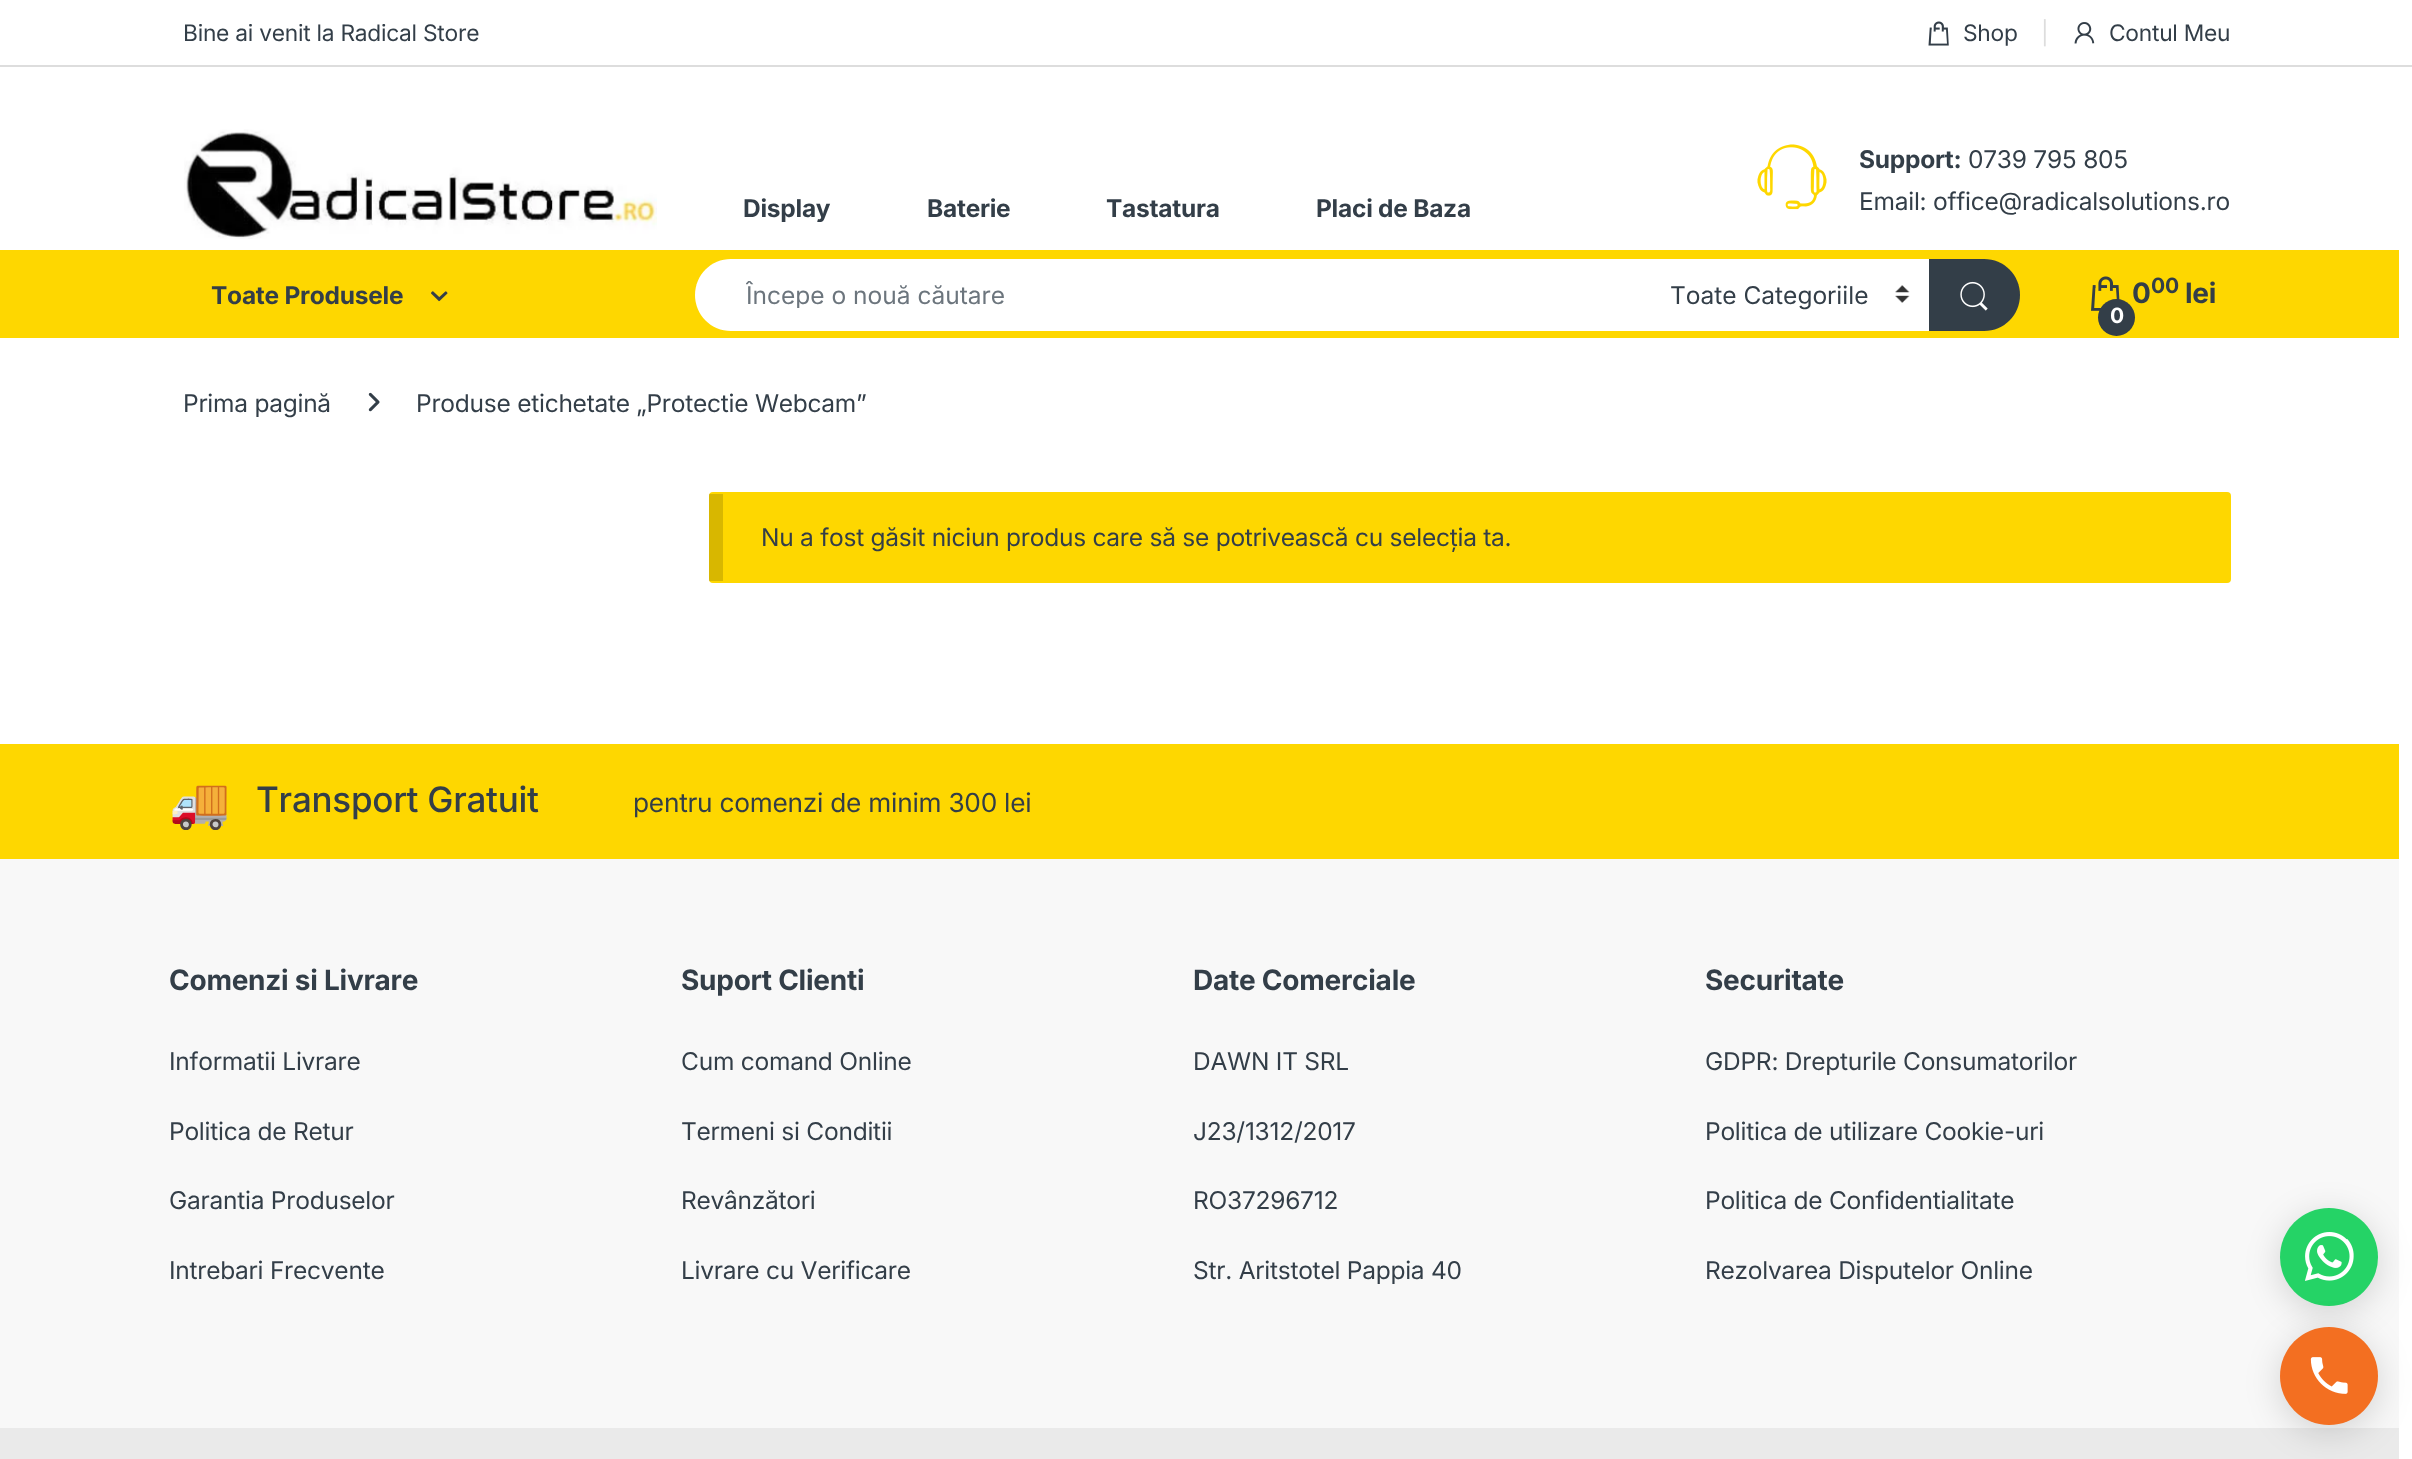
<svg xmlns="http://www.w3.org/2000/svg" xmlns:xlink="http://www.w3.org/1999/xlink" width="2412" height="1459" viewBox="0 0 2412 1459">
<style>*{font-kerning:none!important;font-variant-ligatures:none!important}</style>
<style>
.cls-1{font:22.75px Inter;letter-spacing:-0.25px;fill:#333e48}
.cls-2{font:22.75px Inter;letter-spacing:-0.25px;fill:#dddddd}
.cls-3{font:bold 24.5px Inter;letter-spacing:-0.25px;fill:#333e48}
.cls-4{font:24.5px Inter;letter-spacing:-0.25px;fill:#333e48}
.cls-5{font:24.5px Inter;fill:#6c757d}
.cls-6{font:24.5px Inter;fill:#333e48}
.cls-7{font:bold 28px Inter;letter-spacing:-0.25px;fill:#333e48}
.cls-8{font:bold 21px Inter;letter-spacing:-0.25px;fill:#333e48}
.cls-9{font:bold 21px Inter;letter-spacing:-0.25px;fill:#ffffff}
.cls-10{font:49px Noto Color Emoji;letter-spacing:-0.25px;fill:#333e48}
.cls-11{font:500 35px Inter;letter-spacing:-0.25px;fill:#333e48}
.cls-12{font:26.25px Inter;letter-spacing:-0.25px;fill:#333e48}
</style>
<defs>
<clipPath id="clip1"><rect x="746" y="278" width="852" height="30"/></clipPath>
</defs>
<rect width="100%" height="100%" fill="#ffffff"/>
<rect fill="#dddddd" x="0" y="65" width="2412" height="2"/>
<image xlink:href="image0.png" x="1928" y="21" width="21" height="25"/>
<image xlink:href="image1.png" x="2074" y="22" width="21" height="22"/>
<image xlink:href="image2.png" x="184" y="129" width="473" height="110"/>
<image xlink:href="image3.png" x="1757" y="144" width="70" height="66"/>
<rect fill="#fed700" x="0" y="250" width="2399" height="88"/>
<image xlink:href="image4.png" x="431" y="291" width="17" height="11"/>
<path fill="#ffffff" d="M731 259H1650V331H731C711 331 695 315 695 295C695 275 711 259 731 259Z"/>
<rect fill="#ffffff" x="1650" y="259" width="279" height="72"/>
<image xlink:href="image5.png" x="1895" y="285" width="15" height="18"/>
<path fill="#333e48" d="M1929 259H1984C2004 259 2020 275 2020 295C2020 315 2004 331 1984 331H1929Z"/>
<image xlink:href="image6.png" x="1960" y="281" width="28" height="30"/>
<image xlink:href="image7.png" x="2091" y="276" width="29" height="35"/>
<circle fill="#333e48" cx="2116.5" cy="317.5" r="18.5"/>
<image xlink:href="image8.png" x="368" y="392" width="12" height="20"/>
<rect fill="#fed700" x="709" y="492" width="1522" height="91" rx="4"/>
<rect fill="#000000" fill-opacity="0.15" x="709" y="494" width="14" height="87"/>
<rect fill="#fed700" x="0" y="744" width="2399" height="115"/>
<rect fill="#f8f8f8" x="0" y="859" width="2399" height="569"/>
<rect fill="#eaeaea" x="0" y="1428" width="2399" height="31"/>
<rect fill="#000000" fill-opacity="0.15" filter="blur(17.5px)" x="2280" y="1215" width="98" height="98" rx="49"/>
<circle fill="#25d366" cx="2329" cy="1257" r="49"/>
<rect fill="#000000" fill-opacity="0.15" filter="blur(17.5px)" x="2280" y="1334" width="98" height="98" rx="49"/>
<image xlink:href="image9.png" x="2305" y="1232" width="49" height="49"/>
<circle fill="#f36f21" cx="2329" cy="1376" r="49"/>
<image xlink:href="image10.png" x="2310" y="1357" width="38" height="37"/>
<text class="cls-1" x="183" y="41">Bine ai venit la Radical Store</text>
<text class="cls-1" x="1963" y="41">Shop</text>
<text class="cls-2" x="2041" y="41">|</text>
<text class="cls-1" x="2109" y="41">Contul Meu</text>
<text class="cls-3" x="743" y="217">Display</text>
<text class="cls-3" x="927" y="217">Baterie</text>
<text class="cls-3" x="1106" y="217">Tastatura</text>
<text class="cls-3" x="1316" y="217">Placi de Baza</text>
<text class="cls-3" x="1859" y="168">Support:</text>
<text class="cls-4" x="1968" y="168">0739 795 805</text>
<text class="cls-4" x="1859" y="210">Email: office@radicalsolutions.ro</text>
<text class="cls-3" x="211" y="304">Toate Produsele</text>
<g clip-path="url(#clip1)">
<text class="cls-5" x="746" y="304">Începe o nouă căutare</text>
</g>
<text class="cls-6" x="1670" y="304">Toate Categoriile</text>
<text class="cls-7" x="2132" y="303">0</text>
<text class="cls-8" x="2151" y="293">00</text>
<text class="cls-7" x="2185" y="303">lei</text>
<text class="cls-9" x="2110" y="323">0</text>
<text class="cls-4" x="183" y="412">Prima pagină</text>
<text class="cls-4" x="416" y="412">Produse etichetate „Protectie Webcam”</text>
<text class="cls-4" x="761" y="546">Nu a fost găsit niciun produs care să se potrivească cu selecția ta.</text>
<text class="cls-10" x="169" y="820">🚚</text>
<text class="cls-11" x="256" y="812">Transport Gratuit</text>
<text class="cls-12" x="633" y="812">pentru comenzi de minim 300 lei</text>
<text class="cls-7" x="169" y="990">Comenzi si Livrare</text>
<text class="cls-4" x="169" y="1070">Informatii Livrare</text>
<text class="cls-4" x="169" y="1140">Politica de Retur</text>
<text class="cls-4" x="169" y="1209">Garantia Produselor</text>
<text class="cls-4" x="169" y="1279">Intrebari Frecvente</text>
<text class="cls-7" x="681" y="990">Suport Clienti</text>
<text class="cls-4" x="681" y="1070">Cum comand Online</text>
<text class="cls-4" x="681" y="1140">Termeni si Conditii</text>
<text class="cls-4" x="681" y="1209">Revânzători</text>
<text class="cls-4" x="681" y="1279">Livrare cu Verificare</text>
<text class="cls-7" x="1193" y="990">Date Comerciale</text>
<text class="cls-4" x="1193" y="1070">DAWN IT SRL</text>
<text class="cls-4" x="1193" y="1140">J23/1312/2017</text>
<text class="cls-4" x="1193" y="1209">RO37296712</text>
<text class="cls-4" x="1193" y="1279">Str. Aritstotel Pappia 40</text>
<text class="cls-7" x="1705" y="990">Securitate</text>
<text class="cls-4" x="1705" y="1070">GDPR: Drepturile Consumatorilor</text>
<text class="cls-4" x="1705" y="1140">Politica de utilizare Cookie-uri</text>
<text class="cls-4" x="1705" y="1209">Politica de Confidentialitate</text>
<text class="cls-4" x="1705" y="1279">Rezolvarea Disputelor Online</text>
</svg>
